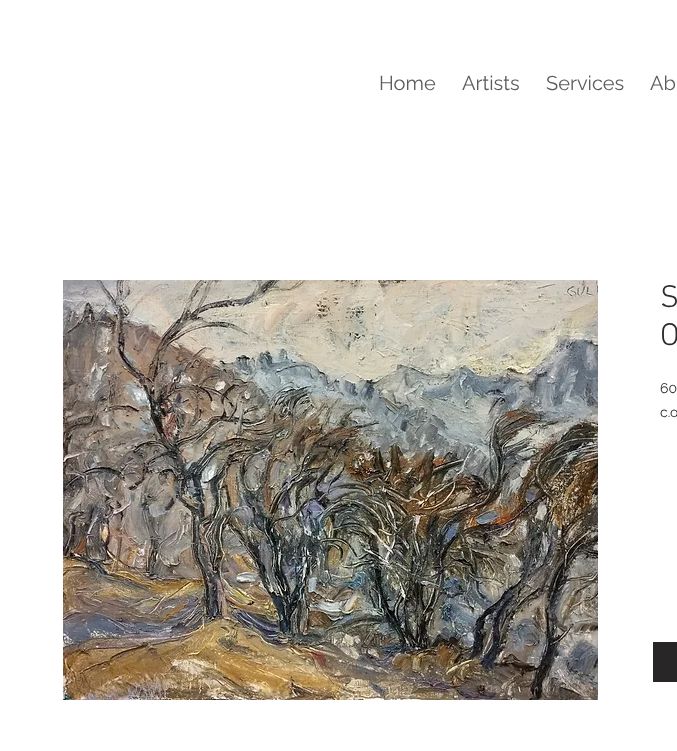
<svg xmlns="http://www.w3.org/2000/svg" xmlns:xlink="http://www.w3.org/1999/xlink" width="677" height="751" viewBox="0 0 677 751">
<style>
.cls-1{font:20px Raleway;fill:#5e5d5d}
.cls-2{font:300 32px 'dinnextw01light';fill:#2c2c2b}
.cls-3{font:14px Raleway;fill:#2c2c2b}
</style>
<rect width="100%" height="100%" fill="#ffffff"/>
<image xlink:href="image0.png" x="63" y="280" width="535" height="420"/>
<rect fill="#282626" x="653" y="642" width="24" height="40"/>
<text class="cls-1" x="379" y="90">Home</text>
<text class="cls-1" x="462" y="90">Artists</text>
<text class="cls-1" x="546" y="90">Services</text>
<text class="cls-1" x="650" y="90">Ab</text>
<text class="cls-2"><tspan x="660" y="307">S</tspan><tspan x="660" y="345">O</tspan></text>
<text class="cls-3"><tspan x="660" y="393">60</tspan><tspan x="660" y="417">c.o</tspan></text>
</svg>
